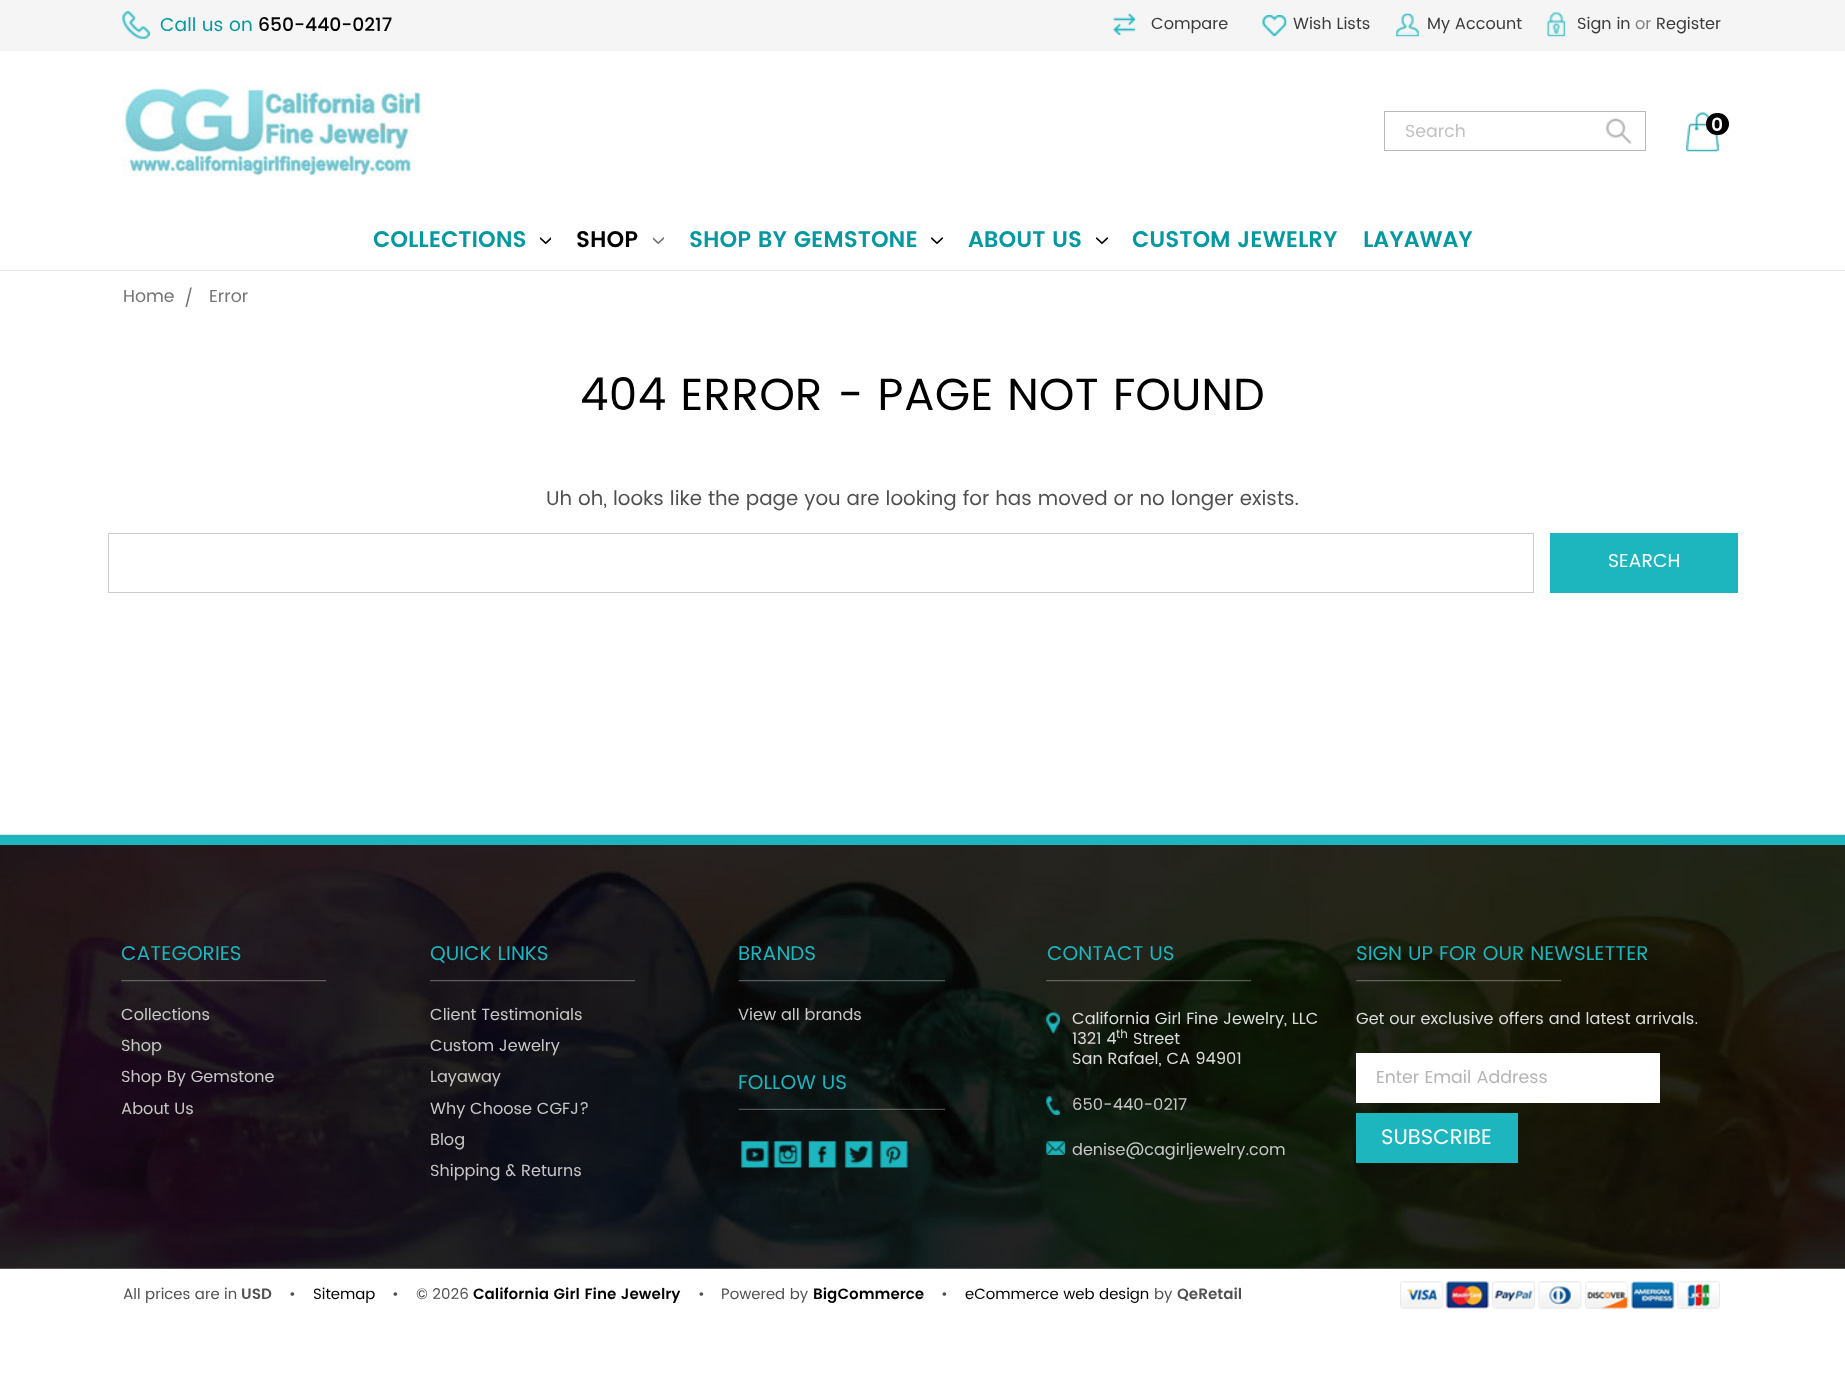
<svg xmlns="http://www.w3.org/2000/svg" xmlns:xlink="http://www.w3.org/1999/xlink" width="1845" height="1387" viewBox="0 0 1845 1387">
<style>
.cls-1{font:18.75px Poppins;fill:#0498a1}
.cls-2{font:500 18.75px Poppins;fill:#000000}
.cls-3{font:16.25px Poppins;fill:#3b3b3b}
.cls-4{font:16.25px Poppins;fill:#808080}
.cls-5{font:17.5px Poppins;fill:#c1c1c1}
.cls-6{font:600 18.75px Poppins;fill:#ffffff}
.cls-7{font:600 22.5px Poppins;fill:#0498a1}
.cls-8{font:600 22.5px Poppins;fill:#000000}
.cls-9{font:17.5px Poppins;fill:#757575}
.cls-10{font:45px Poppins;letter-spacing:0.3px;fill:#000000}
.cls-11{font:20px Poppins;fill:#505050}
.cls-12{font:18.75px Poppins;fill:#ffffff}
.cls-13{font:20px Poppins;fill:#1cb6be}
.cls-14{font:16.25px Poppins;fill:#c7c7c7}
.cls-15{font:16.25px Poppins;fill:#dcdcdc}
.cls-16{font:12px Poppins;fill:#dcdcdc}
.cls-17{font:17.5px Poppins;fill:#b5b4b4}
.cls-18{font:21.25px Poppins;fill:#ffffff}
.cls-19{font:15px Poppins;fill:#505050}
.cls-20{font:600 15px Poppins;fill:#505050}
.cls-21{font:15px Poppins;fill:#000000}
.cls-22{font:600 15px Poppins;fill:#000000}
</style>
<rect width="100%" height="100%" fill="#ffffff"/>
<rect fill="#e5e5e5" x="0" y="270" width="1845" height="1"/>
<rect fill="#f6f5f5" x="0" y="0" width="1845" height="51"/>
<image xlink:href="image0.png" x="122" y="11" width="28" height="28"/>
<image xlink:href="image1.png" x="1113" y="13" width="22" height="22"/>
<image xlink:href="image2.png" x="1262" y="15" width="25" height="22"/>
<image xlink:href="image3.png" x="1396" y="13" width="23" height="24"/>
<image xlink:href="image4.png" x="1547" y="12" width="18" height="25"/>
<image xlink:href="image5.png" x="122" y="86" width="301" height="91"/>
<rect fill="none" stroke="#b7b9b9" x="1384.5" y="111.5" width="261" height="39"/>
<image xlink:href="image6.png" x="1606" y="118" width="26" height="26"/>
<image xlink:href="image7.png" x="1686" y="112" width="33" height="40"/>
<rect fill="#000000" stroke="#000000" stroke-width="3" x="1707.5" y="114.5" width="20" height="19" rx="9.5"/>
<image xlink:href="image8.png" x="540" y="237" width="11" height="8"/>
<image xlink:href="image9.png" x="653" y="237" width="11" height="8"/>
<image xlink:href="image10.png" x="931" y="237" width="12" height="8"/>
<image xlink:href="image10.png" x="1096" y="237" width="12" height="8"/>
<rect fill="none" stroke="#cccccc" x="108.5" y="533.5" width="1425" height="59"/>
<rect fill="#1db6be" x="1550" y="533" width="188" height="60"/>
<rect fill="#e5e5e5" x="0" y="834" width="1845" height="1"/>
<image xlink:href="image11.png" x="0" y="845" width="1845" height="424"/>
<rect fill="#1db6be" x="0" y="835" width="1845" height="10"/>
<image xlink:href="image12.png" x="121" y="980" width="206" height="2"/>
<image xlink:href="image13.png" x="430" y="980" width="205" height="2"/>
<image xlink:href="image14.png" x="738" y="980" width="207" height="2"/>
<image xlink:href="image15.png" x="738" y="1108" width="207" height="2"/>
<image xlink:href="image16.png" x="740" y="1141" width="29" height="27"/>
<image xlink:href="image17.png" x="773" y="1141" width="29" height="27"/>
<image xlink:href="image18.png" x="808" y="1141" width="29" height="27"/>
<image xlink:href="image19.png" x="844" y="1141" width="29" height="27"/>
<image xlink:href="image20.png" x="879" y="1141" width="29" height="27"/>
<image xlink:href="image21.png" x="1046" y="980" width="206" height="2"/>
<image xlink:href="image22.png" x="1046" y="1012" width="14" height="22"/>
<image xlink:href="image23.png" x="1046" y="1096" width="14" height="19"/>
<image xlink:href="image24.png" x="1046" y="1141" width="19" height="14"/>
<image xlink:href="image25.png" x="1356" y="980" width="206" height="2"/>
<rect fill="#ffffff" x="1356" y="1053" width="304" height="50"/>
<rect fill="#1db6be" x="1356" y="1113" width="162" height="50"/>
<image xlink:href="image26.png" x="1400" y="1281" width="320" height="28"/>
<text class="cls-1" x="160" y="31">Call us on</text>
<text class="cls-2" x="258" y="31">650-440-0217</text>
<text class="cls-3" x="1151" y="29">Compare</text>
<text class="cls-3" x="1293" y="29">Wish Lists</text>
<text class="cls-3" x="1427" y="29">My Account</text>
<text class="cls-3" x="1577" y="29">Sign in</text>
<text class="cls-4" x="1635" y="29">or</text>
<text class="cls-3" x="1656" y="29">Register</text>
<text class="cls-5" x="1405" y="137">Search</text>
<text class="cls-6" x="1711" y="131">0</text>
<text class="cls-7" x="373" y="247">COLLECTIONS</text>
<text class="cls-8" x="576" y="247">SHOP</text>
<text class="cls-7" x="689" y="247">SHOP BY GEMSTONE</text>
<text class="cls-7" x="968" y="247">ABOUT US</text>
<text class="cls-7" x="1132" y="247">CUSTOM JEWELRY</text>
<text class="cls-7" x="1363" y="247">LAYAWAY</text>
<text class="cls-9" x="123" y="302">Home</text>
<text class="cls-9" x="184" y="304">/</text>
<text class="cls-9" x="209" y="302">Error</text>
<text class="cls-10" x="580" y="410">404 ERROR - PAGE NOT FOUND</text>
<text class="cls-11" x="546" y="505">Uh oh, looks like the page you are looking for has moved or no longer exists.</text>
<text class="cls-12" x="1608" y="567">SEARCH</text>
<text class="cls-13" x="121" y="960">CATEGORIES</text>
<text class="cls-14"><tspan x="121" y="1020">Collections</tspan><tspan x="121" y="1051">Shop</tspan><tspan x="121" y="1082">Shop By Gemstone</tspan><tspan x="121" y="1114">About Us</tspan></text>
<text class="cls-13" x="430" y="960">QUICK LINKS</text>
<text class="cls-14"><tspan x="430" y="1020">Client Testimonials</tspan><tspan x="430" y="1051">Custom Jewelry</tspan><tspan x="430" y="1082">Layaway</tspan><tspan x="430" y="1114">Why Choose CGFJ?</tspan><tspan x="430" y="1145">Blog</tspan><tspan x="430" y="1176">Shipping &amp; Returns</tspan></text>
<text class="cls-13" x="738" y="960">BRANDS</text>
<text class="cls-14" x="738" y="1020">View all brands</text>
<text class="cls-13" x="738" y="1089">FOLLOW US</text>
<text class="cls-13" x="1047" y="960">CONTACT US</text>
<text class="cls-15"><tspan x="1072" y="1024">California Girl Fine Jewelry, LLC</tspan><tspan x="1072" y="1044">1321 4</tspan></text>
<text class="cls-16" x="1116" y="1038">th</text>
<text class="cls-15" x="1133" y="1044">Street</text>
<text class="cls-15" x="1072" y="1064">San Rafael, CA 94901</text>
<text class="cls-14" x="1072" y="1110">650-440-0217</text>
<text class="cls-14" x="1072" y="1155">denise@cagirljewelry.com</text>
<text class="cls-13" x="1356" y="960">SIGN UP FOR OUR NEWSLETTER</text>
<text class="cls-15" x="1356" y="1024">Get our exclusive offers and latest arrivals.</text>
<text class="cls-17" x="1376" y="1083">Enter Email Address</text>
<text class="cls-18" x="1381" y="1144">SUBSCRIBE</text>
<text class="cls-19" x="123" y="1299">All prices are in</text>
<text class="cls-20" x="241" y="1299">USD</text>
<text class="cls-19" x="289" y="1299">•</text>
<text class="cls-21" x="313" y="1299">Sitemap</text>
<text class="cls-19" x="392" y="1299">•</text>
<text class="cls-19" x="416" y="1299">© 2026</text>
<text class="cls-22" x="473" y="1299">California Girl Fine Jewelry</text>
<text class="cls-19" x="698" y="1299">•</text>
<text class="cls-19" x="721" y="1299">Powered by</text>
<text class="cls-22" x="813" y="1299">BigCommerce</text>
<text class="cls-19" x="941" y="1299">•</text>
<text class="cls-21" x="965" y="1299">eCommerce web design</text>
<text class="cls-19" x="1154" y="1299">by</text>
<text class="cls-20" x="1177" y="1299">QeRetail</text>
</svg>
